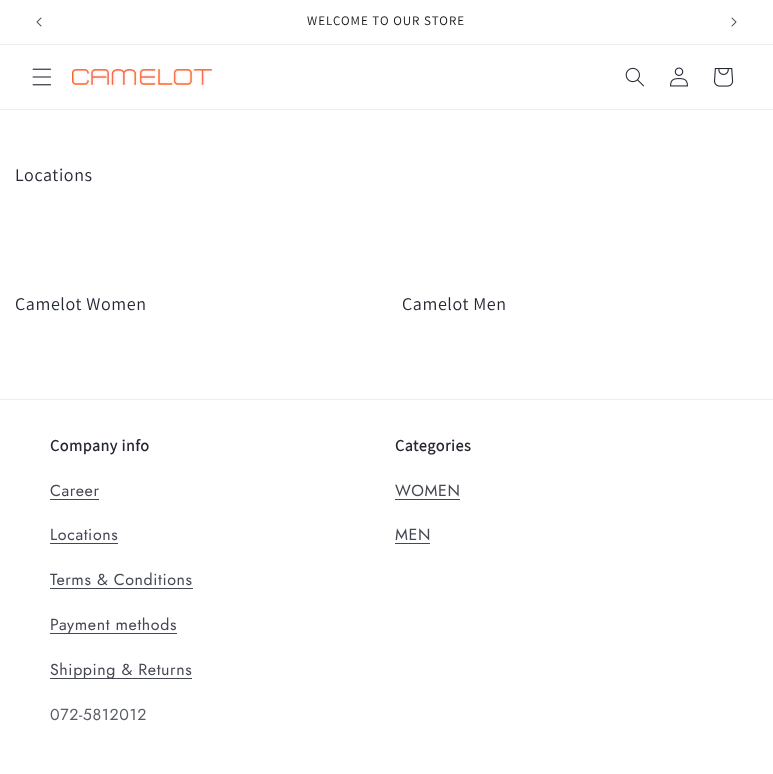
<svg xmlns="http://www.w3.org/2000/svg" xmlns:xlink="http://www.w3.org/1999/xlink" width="773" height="774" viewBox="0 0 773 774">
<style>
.cls-1{font:13px Assistant;letter-spacing:1px;fill:#121212}
.cls-2{font:18px Assistant;letter-spacing:0.6px;fill:#242833}
.cls-3{font:bold 16px Assistant;letter-spacing:0.6px;fill:#242833}
.cls-4{font:16px Jost;letter-spacing:0.6px;fill:#454852}
.cls-5{font:16px Jost;letter-spacing:0.6px;fill:#5b5e66}
</style>
<rect width="100%" height="100%" fill="#ffffff"/>
<rect fill="#ececec" x="0" y="44" width="773" height="1"/>
<image xlink:href="image0.png" x="36" y="17" width="6" height="10"/>
<image xlink:href="image1.png" x="731" y="17" width="6" height="10"/>
<rect fill="#edeeef" x="0" y="109" width="773" height="1"/>
<image xlink:href="image2.png" x="32" y="68" width="20" height="18"/>
<image xlink:href="image3.png" x="72" y="69" width="140" height="16"/>
<image xlink:href="image4.png" x="625" y="67" width="19" height="20"/>
<image xlink:href="image5.png" x="670" y="67" width="18" height="20"/>
<image xlink:href="image6.png" x="714" y="68" width="20" height="19"/>
<rect fill="#edeeef" x="0" y="399" width="773" height="1"/>
<rect fill="#454852" x="50" y="499" width="49" height="1"/>
<rect fill="#454852" x="50" y="543" width="68" height="1"/>
<rect fill="#454852" x="50" y="588" width="143" height="1"/>
<rect fill="#454852" x="50" y="633" width="127" height="1"/>
<rect fill="#454852" x="50" y="678" width="142" height="1"/>
<rect fill="#454852" x="395" y="499" width="65" height="1"/>
<rect fill="#454852" x="395" y="543" width="35" height="1"/>
<text class="cls-1" x="307" y="25">WELCOME TO OUR STORE</text>
<text class="cls-2" x="15" y="181">Locations</text>
<text class="cls-2" x="15" y="310">Camelot Women</text>
<text class="cls-2" x="402" y="310">Camelot Men</text>
<text class="cls-3" x="50" y="451">Company info</text>
<text class="cls-4" x="50" y="496">Career</text>
<text class="cls-4" x="50" y="540">Locations</text>
<text class="cls-4" x="50" y="585">Terms &amp; Conditions</text>
<text class="cls-4" x="50" y="630">Payment methods</text>
<text class="cls-4" x="50" y="675">Shipping &amp; Returns</text>
<text class="cls-5" x="50" y="720">072-5812012</text>
<text class="cls-3" x="395" y="451">Categories</text>
<text class="cls-4" x="395" y="496">WOMEN</text>
<text class="cls-4" x="395" y="540">MEN</text>
</svg>
